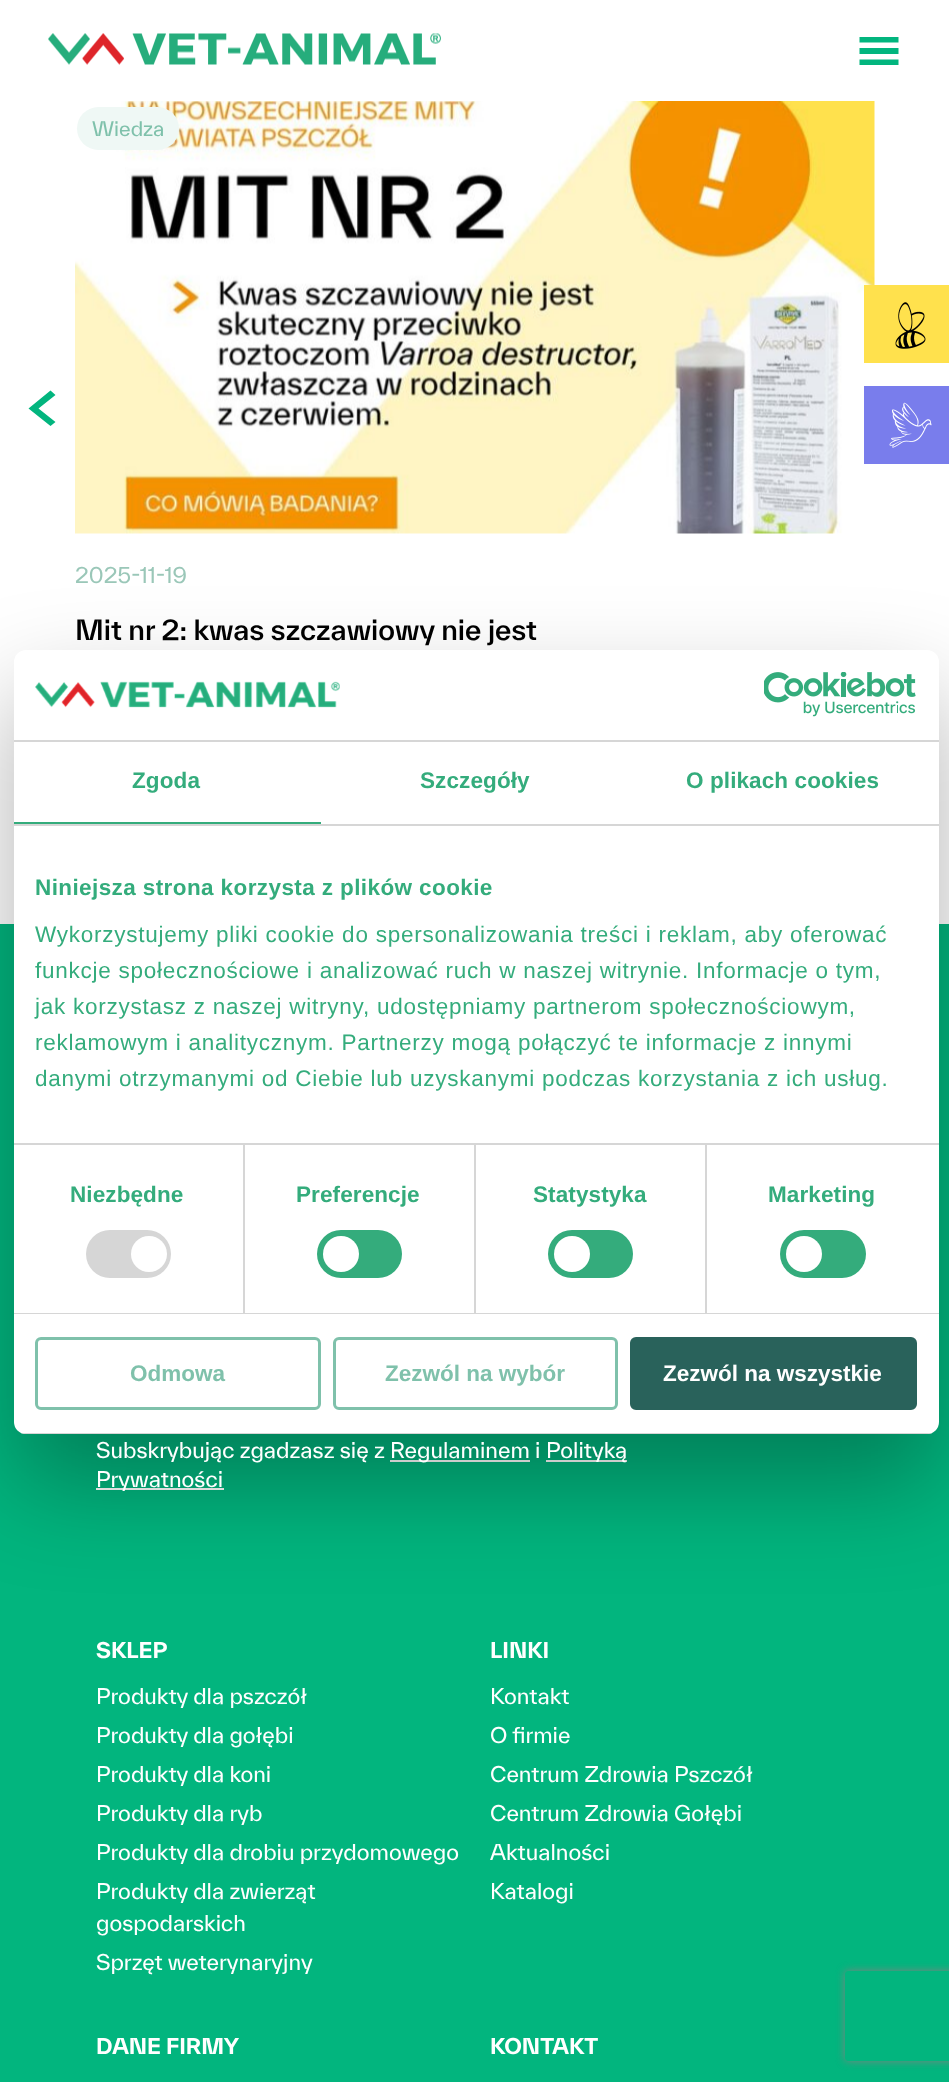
<svg xmlns="http://www.w3.org/2000/svg" xmlns:xlink="http://www.w3.org/1999/xlink" width="949" height="2082" viewBox="0 0 949 2082">
<style>
.cls-1{font:19.5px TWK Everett;fill:#7fc1ab}
.cls-2{font:21px TWK Everett;fill:#9ac7b8}
.cls-3{font:500 27px TWK Everett;fill:#000000}
.cls-4{font:bold 22.5px Liberation Sans;letter-spacing:0.1px;fill:#34ac7c}
.cls-5{font:bold 22.5px Liberation Sans;letter-spacing:0.4px;fill:#34ac7c}
.cls-6{font:22.5px Liberation Sans;letter-spacing:0.75px;fill:#34ac7c}
.cls-7{font:bold 22.5px Liberation Sans;fill:#7fc1ab}
.cls-8{font:bold 22.5px Liberation Sans;fill:#ffffff}
.cls-9{font:21px TWK Everett;fill:#ffffff}
.cls-10{font:bold 21px TWK Everett;fill:#ffffff}
</style>
<defs>
<clipPath id="clip1"><rect x="14" y="650" width="925" height="784" rx="12"/></clipPath>
<clipPath id="clip2"><path d="M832 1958H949V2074H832ZM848 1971H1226C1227.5 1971 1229 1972.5 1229 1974V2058C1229 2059.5 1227.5 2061 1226 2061H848C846.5 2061 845 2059.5 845 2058V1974C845 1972.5 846.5 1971 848 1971Z" clip-rule="evenodd"/></clipPath>
</defs>
<rect width="100%" height="100%" fill="#ffffff"/>
<image xlink:href="image0.png" x="48" y="33" width="393" height="32"/>
<path fill="#02b57e" d="M859.5 37V42.5H898.5V37ZM859.5 48V54H898.5V48ZM859.5 59.5V65H898.5V59.5Z"/>
<path fill="#02b57e" d="M50.5 426L55.5 422L38.5 408.5L55.5 395L50.5 390.5L28.5 408.5Z"/>
<image xlink:href="image1.png" x="75" y="101" width="800" height="433"/>
<rect fill="#eff8f5" x="77" y="107" width="102" height="43" rx="21.5"/>
<rect fill="#ffe14d" x="864" y="285" width="85" height="78"/>
<image xlink:href="image2.png" x="895" y="302" width="31" height="47"/>
<rect fill="#797dec" x="864" y="386" width="85" height="78"/>
<image xlink:href="image3.png" x="889" y="402" width="43" height="46"/>
<rect fill="#02b57e" x="0" y="924" width="949" height="1158"/>
<rect fill="#ffffff" x="390" y="1460" width="140" height="2"/>
<rect fill="#ffffff" x="546" y="1460" width="81" height="2"/>
<rect fill="#ffffff" x="96" y="1488" width="128" height="2"/>
<rect fill="#000000" fill-opacity="0.3" filter="blur(51px)" x="14" y="698" width="925" height="784" rx="12"/>
<rect fill="#ffffff" x="14" y="650" width="925" height="784" rx="12"/>
<rect fill="#d6d6d6" x="14" y="740" width="925" height="2"/>
<image xlink:href="image4.png" x="35" y="681" width="305" height="27"/>
<image xlink:href="image5.png" x="764" y="672" width="152" height="45"/>
<rect fill="#d6d6d6" x="14" y="824" width="925" height="2"/>
<rect fill="#34ac7c" x="14" y="822" width="307" height="2"/>
<rect fill="#d6d6d6" x="14" y="1143" width="925" height="2"/>
<rect fill="#d6d6d6" x="14" y="1313" width="925" height="1"/>
<rect fill="#d6d6d6" x="243" y="1145" width="2" height="168"/>
<rect fill="#d6d6d6" x="86" y="1230" width="85" height="48" rx="24"/>
<circle fill="#ffffff" cx="149" cy="1254" r="18"/>
<rect fill="#d6d6d6" x="474" y="1145" width="2" height="168"/>
<rect fill="#34ac7c" x="317" y="1230" width="85" height="48" rx="24"/>
<circle fill="#ffffff" cx="341" cy="1254" r="18"/>
<rect fill="#d6d6d6" x="705" y="1145" width="2" height="168"/>
<rect fill="#34ac7c" x="548" y="1230" width="85" height="48" rx="24"/>
<circle fill="#ffffff" cx="572" cy="1254" r="18"/>
<rect fill="#34ac7c" x="780" y="1230" width="86" height="48" rx="24"/>
<circle fill="#ffffff" cx="804" cy="1254" r="18"/>
<g clip-path="url(#clip1)">
<rect fill="#d6d6d6" x="14" y="1433" width="925" height="1"/>
</g>
<rect fill="none" stroke="#7fc1ab" stroke-width="3" x="36.5" y="1338.5" width="283" height="70" rx="4.5"/>
<rect fill="none" stroke="#7fc1ab" stroke-width="3" x="334.5" y="1338.5" width="282" height="70" rx="4.5"/>
<rect fill="#29625b" stroke="#29625b" stroke-width="3" x="631.5" y="1338.5" width="284" height="70" rx="4.5"/>
<g clip-path="url(#clip2)">
<rect fill="#808080" filter="blur(4px)" x="845" y="1971" width="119" height="90" rx="3"/>
</g>
<text class="cls-1" x="92" y="136">Wiedza</text>
<text class="cls-2" x="75" y="583">2025-11-19</text>
<text class="cls-3" x="75" y="640">Mit nr 2: kwas szczawiowy nie jest</text>
<text class="cls-4" x="132" y="788">Zgoda</text>
<text class="cls-4" x="420" y="788">Szczegóły</text>
<text class="cls-4" x="686" y="788">O plikach cookies</text>
<text class="cls-5" x="35" y="895">Niniejsza strona korzysta z plików cookie</text>
<text class="cls-6"><tspan x="35" y="942">Wykorzystujemy pliki cookie do spersonalizowania treści i reklam, aby oferować</tspan><tspan x="35" y="978">funkcje społecznościowe i analizować ruch w naszej witrynie. Informacje o tym,</tspan><tspan x="35" y="1014">jak korzystasz z naszej witryny, udostępniamy partnerom społecznościowym,</tspan><tspan x="35" y="1050">reklamowym i analitycznym. Partnerzy mogą połączyć te informacje z innymi</tspan><tspan x="35" y="1086">danymi otrzymanymi od Ciebie lub uzyskanymi podczas korzystania z ich usług.</tspan></text>
<text class="cls-4" x="70" y="1202">Niezbędne</text>
<text class="cls-4" x="296" y="1202">Preferencje</text>
<text class="cls-4" x="533" y="1202">Statystyka</text>
<text class="cls-4" x="768" y="1202">Marketing</text>
<text class="cls-7" x="130" y="1381">Odmowa</text>
<text class="cls-7" x="385" y="1381">Zezwól na wybór</text>
<text class="cls-8" x="663" y="1381">Zezwól na wszystkie</text>
<text class="cls-9" x="96" y="1458">Subskrybując zgadzasz się z</text>
<text class="cls-9" x="390" y="1458">Regulaminem i</text>
<text class="cls-9" x="546" y="1458">Polityką</text>
<text class="cls-9" x="96" y="1487">Prywatności</text>
<text class="cls-10" x="96" y="1658">SKLEP</text>
<text class="cls-9"><tspan x="96" y="1704">Produkty dla pszczół</tspan><tspan x="96" y="1743">Produkty dla gołębi</tspan><tspan x="96" y="1782">Produkty dla koni</tspan><tspan x="96" y="1821">Produkty dla ryb</tspan><tspan x="96" y="1860">Produkty dla drobiu przydomowego</tspan><tspan x="96" y="1899">Produkty dla zwierząt</tspan><tspan x="96" y="1931">gospodarskich</tspan><tspan x="96" y="1970">Sprzęt weterynaryjny</tspan></text>
<text class="cls-10" x="490" y="1658">LINKI</text>
<text class="cls-9"><tspan x="490" y="1704">Kontakt</tspan><tspan x="490" y="1743">O firmie</tspan><tspan x="490" y="1782">Centrum Zdrowia Pszczół</tspan><tspan x="490" y="1821">Centrum Zdrowia Gołębi</tspan><tspan x="490" y="1860">Aktualności</tspan><tspan x="490" y="1899">Katalogi</tspan></text>
<text class="cls-10" x="96" y="2054">DANE FIRMY</text>
<text class="cls-10" x="490" y="2054">KONTAKT</text>
</svg>
